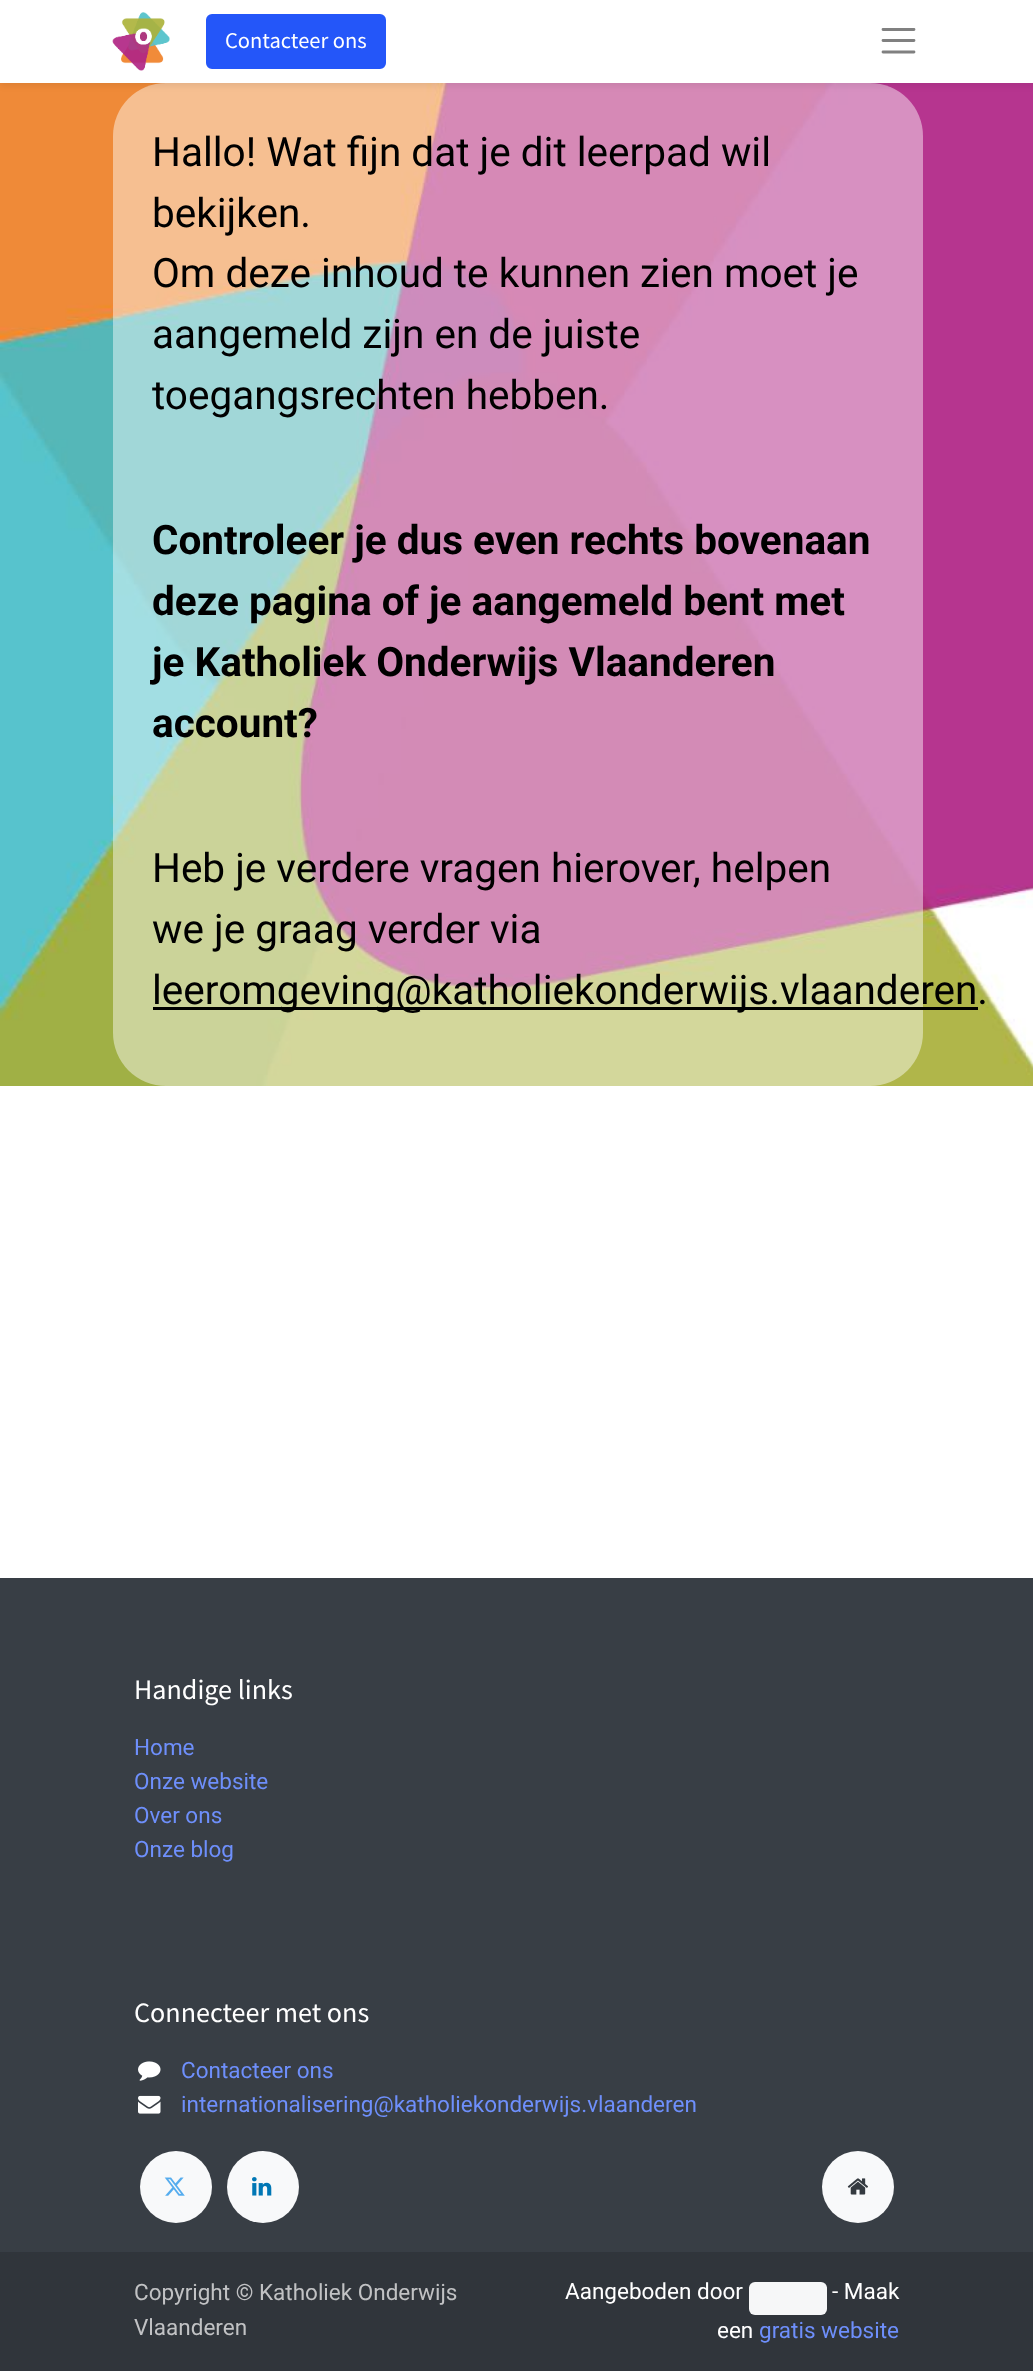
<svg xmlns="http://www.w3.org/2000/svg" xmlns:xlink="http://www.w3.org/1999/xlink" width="1033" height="2371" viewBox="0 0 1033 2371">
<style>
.cls-1{font:22.5px Source Sans Pro;fill:#ffffff}
.cls-2{font:40.5px Roboto;fill:#000000}
.cls-3{font:bold 40.5px Roboto;fill:#000000}
.cls-4{font:28.1px Source Sans Pro;fill:#ffffff}
.cls-5{font:22.5px Roboto;fill:#6e8ffb}
.cls-6{font:22.5px Roboto;fill:#c1c2c4}
.cls-7{font:22.5px Roboto;fill:#ffffff}
</style>
<rect width="100%" height="100%" fill="#ffffff"/>
<image xlink:href="image1.png" x="0" y="83" width="1033" height="1003"/>
<rect fill="#ffffff" fill-opacity="0.45" x="113" y="83" width="810" height="1003" rx="53"/>
<rect fill="#000000" fill-opacity="0.07" filter="blur(3px)" x="0" y="3" width="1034" height="83"/>
<rect fill="#ffffff" x="0" y="0" width="1033" height="83"/>
<image xlink:href="image0.png" x="112" y="12" width="58" height="59"/>
<rect fill="#2456f9" stroke="#2456f9" stroke-width="2" x="207" y="15" width="178" height="53" rx="5"/>
<path fill="none" stroke="#808080" stroke-width="2.8" stroke-linecap="round" d="M883 29.5H914M883 40.5H914M883 52H914"/>
<rect fill="#000000" x="153" y="1007" width="825" height="3"/>
<rect fill="#383e45" x="0" y="1578" width="1033" height="674"/>
<image xlink:href="image2.png" x="138" y="2061" width="23" height="20"/>
<image xlink:href="image3.png" x="138" y="2095" width="23" height="19"/>
<circle fill="#f8f9fa" cx="176" cy="2187" r="36"/>
<image xlink:href="image4.png" x="164" y="2177" width="21" height="19"/>
<circle fill="#f8f9fa" cx="263" cy="2187" r="36"/>
<image xlink:href="image5.png" x="252" y="2177" width="20" height="19"/>
<circle fill="#f8f9fa" cx="858" cy="2187" r="36"/>
<image xlink:href="image6.png" x="847" y="2178" width="21" height="17"/>
<rect fill="#30353b" x="0" y="2252" width="1033" height="119"/>
<rect fill="#f6f7f8" x="749" y="2282" width="78" height="33" rx="6"/>
<text class="cls-1" x="225" y="48">Contacteer ons</text>
<text class="cls-2"><tspan x="152" y="166">Hallo! Wat fijn dat je dit leerpad wil</tspan><tspan x="152" y="227">bekijken.</tspan><tspan x="152" y="287">Om deze inhoud te kunnen zien moet je</tspan><tspan x="152" y="348">aangemeld zijn en de juiste</tspan><tspan x="152" y="409">toegangsrechten hebben.</tspan></text>
<text class="cls-3"><tspan x="152" y="554">Controleer je dus even rechts bovenaan</tspan><tspan x="152" y="615">deze pagina of je aangemeld bent met</tspan><tspan x="152" y="676">je Katholiek Onderwijs Vlaanderen</tspan><tspan x="152" y="737">account?</tspan></text>
<text class="cls-2"><tspan x="152" y="882">Heb je verdere vragen hierover, helpen</tspan><tspan x="152" y="943">we je graag verder via</tspan><tspan x="152" y="1004">leeromgeving@katholiekonderwijs.vlaanderen.</tspan></text>
<text class="cls-4" x="134" y="1699">Handige links</text>
<text class="cls-5"><tspan x="134" y="1755">Home</tspan><tspan x="134" y="1789">Onze website</tspan><tspan x="134" y="1823">Over ons</tspan><tspan x="134" y="1857">Onze blog</tspan></text>
<text class="cls-4" x="134" y="2022">Connecteer met ons</text>
<text class="cls-5"><tspan x="181" y="2078">Contacteer ons</tspan><tspan x="181" y="2112">internationalisering@katholiekonderwijs.vlaanderen</tspan></text>
<text class="cls-6"><tspan x="134" y="2300">Copyright © Katholiek Onderwijs</tspan><tspan x="134" y="2335">Vlaanderen</tspan></text>
<text class="cls-7" x="565" y="2299">Aangeboden door</text>
<text class="cls-7" x="832" y="2299">- Maak</text>
<text class="cls-7" x="717" y="2338">een</text>
<text class="cls-5" x="759" y="2338">gratis website</text>
</svg>
